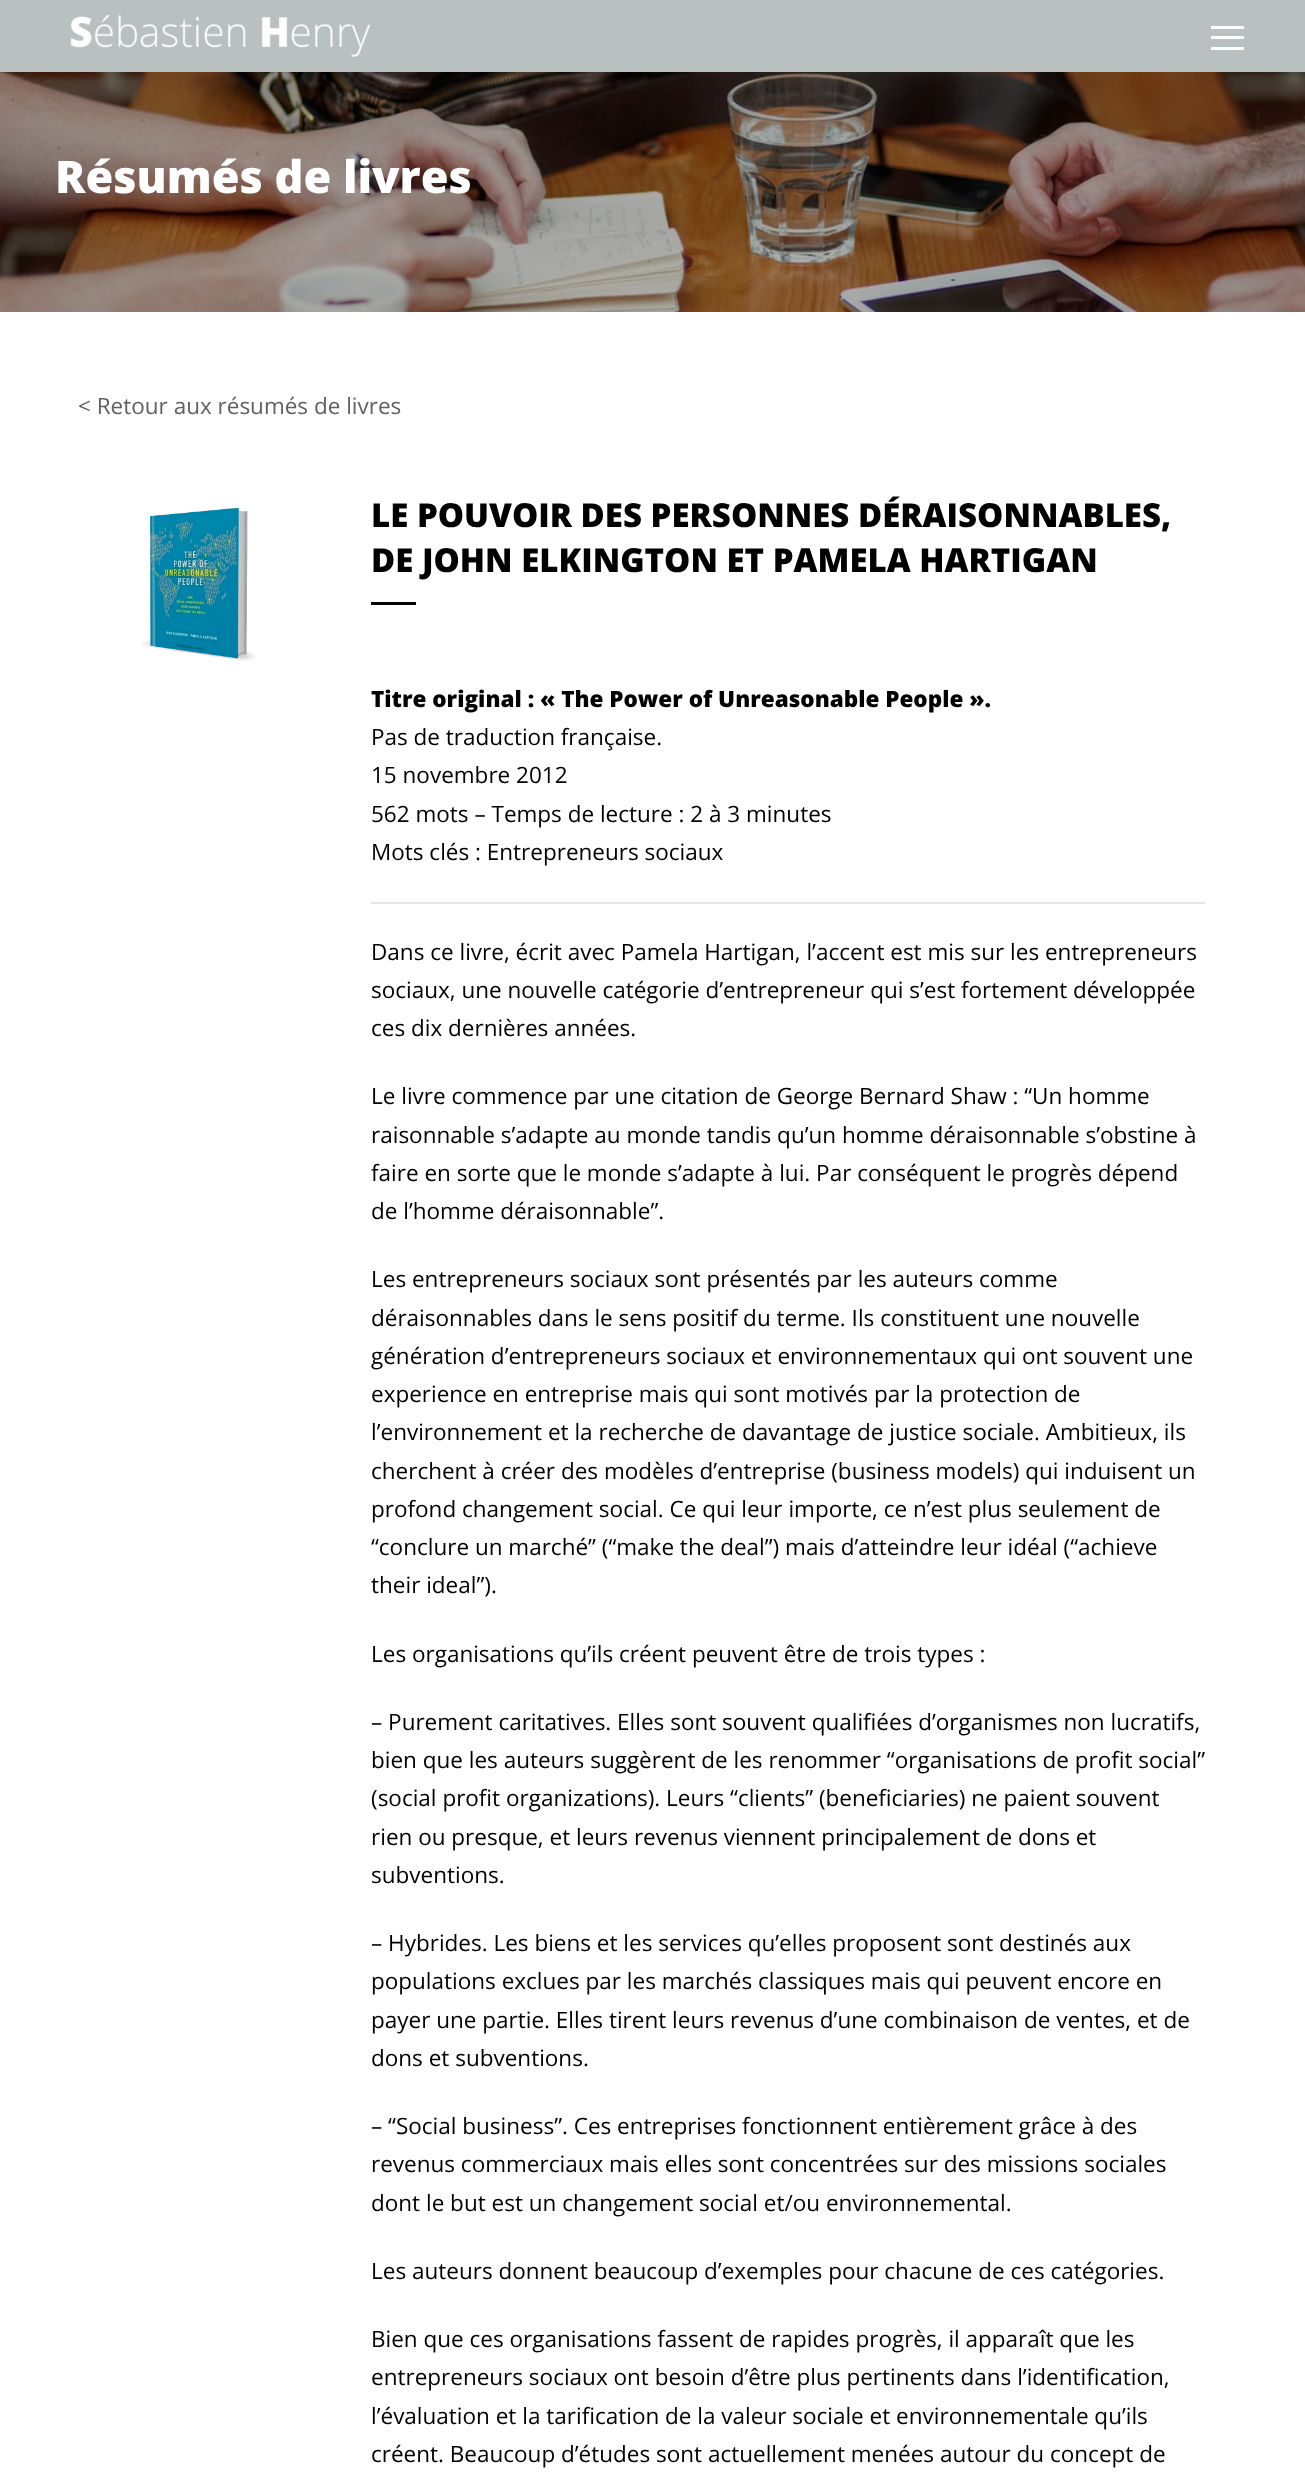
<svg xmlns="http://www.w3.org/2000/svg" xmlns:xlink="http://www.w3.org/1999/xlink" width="1305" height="2491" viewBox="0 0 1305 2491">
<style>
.cls-1{font:800 45px Open Sans;fill:#ffffff}
.cls-2{font:22.5px Open Sans;fill:#616161}
.cls-3{font:800 33px Open Sans;fill:#000000}
.cls-4{font:800 22.5px Open Sans;fill:#000000}
.cls-5{font:22.5px Open Sans;fill:#000000}
</style>
<rect width="100%" height="100%" fill="#ffffff"/>
<rect fill="#b9c0c0" x="0" y="0" width="1305" height="72"/>
<image xlink:href="image0.png" x="70" y="15" width="301" height="42"/>
<rect fill="#ffffff" x="1211" y="26" width="33" height="3"/>
<rect fill="#ffffff" x="1211" y="36" width="33" height="3"/>
<rect fill="#ffffff" x="1211" y="47" width="33" height="3"/>
<image xlink:href="image1.png" x="0" y="72" width="1305" height="240"/>
<image xlink:href="image2.png" x="141" y="508" width="115" height="153"/>
<rect fill="#000000" x="371" y="602" width="45" height="3"/>
<rect fill="#e6e6e6" x="371" y="902" width="834" height="2"/>
<text class="cls-1" x="55" y="193">Résumés de livres</text>
<text class="cls-2" x="78" y="414">&lt; Retour aux résumés de livres</text>
<text class="cls-3"><tspan x="371" y="527">LE POUVOIR DES PERSONNES DÉRAISONNABLES,</tspan><tspan x="371" y="572">DE JOHN ELKINGTON ET PAMELA HARTIGAN</tspan></text>
<text class="cls-4" x="371" y="707">Titre original : « The Power of Unreasonable People ».</text>
<text class="cls-5"><tspan x="371" y="745">Pas de traduction française.</tspan><tspan x="371" y="783">15 novembre 2012</tspan><tspan x="371" y="822">562 mots – Temps de lecture : 2 à 3 minutes</tspan><tspan x="371" y="860">Mots clés : Entrepreneurs sociaux</tspan></text>
<text class="cls-5"><tspan x="371" y="960">Dans ce livre, écrit avec Pamela Hartigan, l’accent est mis sur les entrepreneurs</tspan><tspan x="371" y="998">sociaux, une nouvelle catégorie d’entrepreneur qui s’est fortement développée</tspan><tspan x="371" y="1036">ces dix dernières années.</tspan></text>
<text class="cls-5"><tspan x="371" y="1104">Le livre commence par une citation de George Bernard Shaw : “Un homme</tspan><tspan x="371" y="1143">raisonnable s’adapte au monde tandis qu’un homme déraisonnable s’obstine à</tspan><tspan x="371" y="1181">faire en sorte que le monde s’adapte à lui. Par conséquent le progrès dépend</tspan><tspan x="371" y="1219">de l’homme déraisonnable”.</tspan></text>
<text class="cls-5"><tspan x="371" y="1287">Les entrepreneurs sociaux sont présentés par les auteurs comme</tspan><tspan x="371" y="1326">déraisonnables dans le sens positif du terme. Ils constituent une nouvelle</tspan><tspan x="371" y="1364">génération d’entrepreneurs sociaux et environnementaux qui ont souvent une</tspan><tspan x="371" y="1402">experience en entreprise mais qui sont motivés par la protection de</tspan><tspan x="371" y="1440">l’environnement et la recherche de davantage de justice sociale. Ambitieux, ils</tspan><tspan x="371" y="1479">cherchent à créer des modèles d’entreprise (business models) qui induisent un</tspan><tspan x="371" y="1517">profond changement social. Ce qui leur importe, ce n’est plus seulement de</tspan><tspan x="371" y="1555">“conclure un marché” (“make the deal”) mais d’atteindre leur idéal (“achieve</tspan><tspan x="371" y="1593">their ideal”).</tspan></text>
<text class="cls-5" x="371" y="1662">Les organisations qu’ils créent peuvent être de trois types :</text>
<text class="cls-5"><tspan x="371" y="1730">– Purement caritatives. Elles sont souvent qualifiées d’organismes non lucratifs,</tspan><tspan x="371" y="1768">bien que les auteurs suggèrent de les renommer “organisations de profit social”</tspan><tspan x="371" y="1806">(social profit organizations). Leurs “clients” (beneficiaries) ne paient souvent</tspan><tspan x="371" y="1845">rien ou presque, et leurs revenus viennent principalement de dons et</tspan><tspan x="371" y="1883">subventions.</tspan></text>
<text class="cls-5"><tspan x="371" y="1951">– Hybrides. Les biens et les services qu’elles proposent sont destinés aux</tspan><tspan x="371" y="1989">populations exclues par les marchés classiques mais qui peuvent encore en</tspan><tspan x="371" y="2028">payer une partie. Elles tirent leurs revenus d’une combinaison de ventes, et de</tspan><tspan x="371" y="2066">dons et subventions.</tspan></text>
<text class="cls-5"><tspan x="371" y="2134">– “Social business”. Ces entreprises fonctionnent entièrement grâce à des</tspan><tspan x="371" y="2172">revenus commerciaux mais elles sont concentrées sur des missions sociales</tspan><tspan x="371" y="2211">dont le but est un changement social et/ou environnemental.</tspan></text>
<text class="cls-5" x="371" y="2279">Les auteurs donnent beaucoup d’exemples pour chacune de ces catégories.</text>
<text class="cls-5"><tspan x="371" y="2347">Bien que ces organisations fassent de rapides progrès, il apparaît que les</tspan><tspan x="371" y="2385">entrepreneurs sociaux ont besoin d’être plus pertinents dans l’identification,</tspan><tspan x="371" y="2424">l’évaluation et la tarification de la valeur sociale et environnementale qu’ils</tspan><tspan x="371" y="2462">créent. Beaucoup d’études sont actuellement menées autour du concept de</tspan></text>
</svg>
